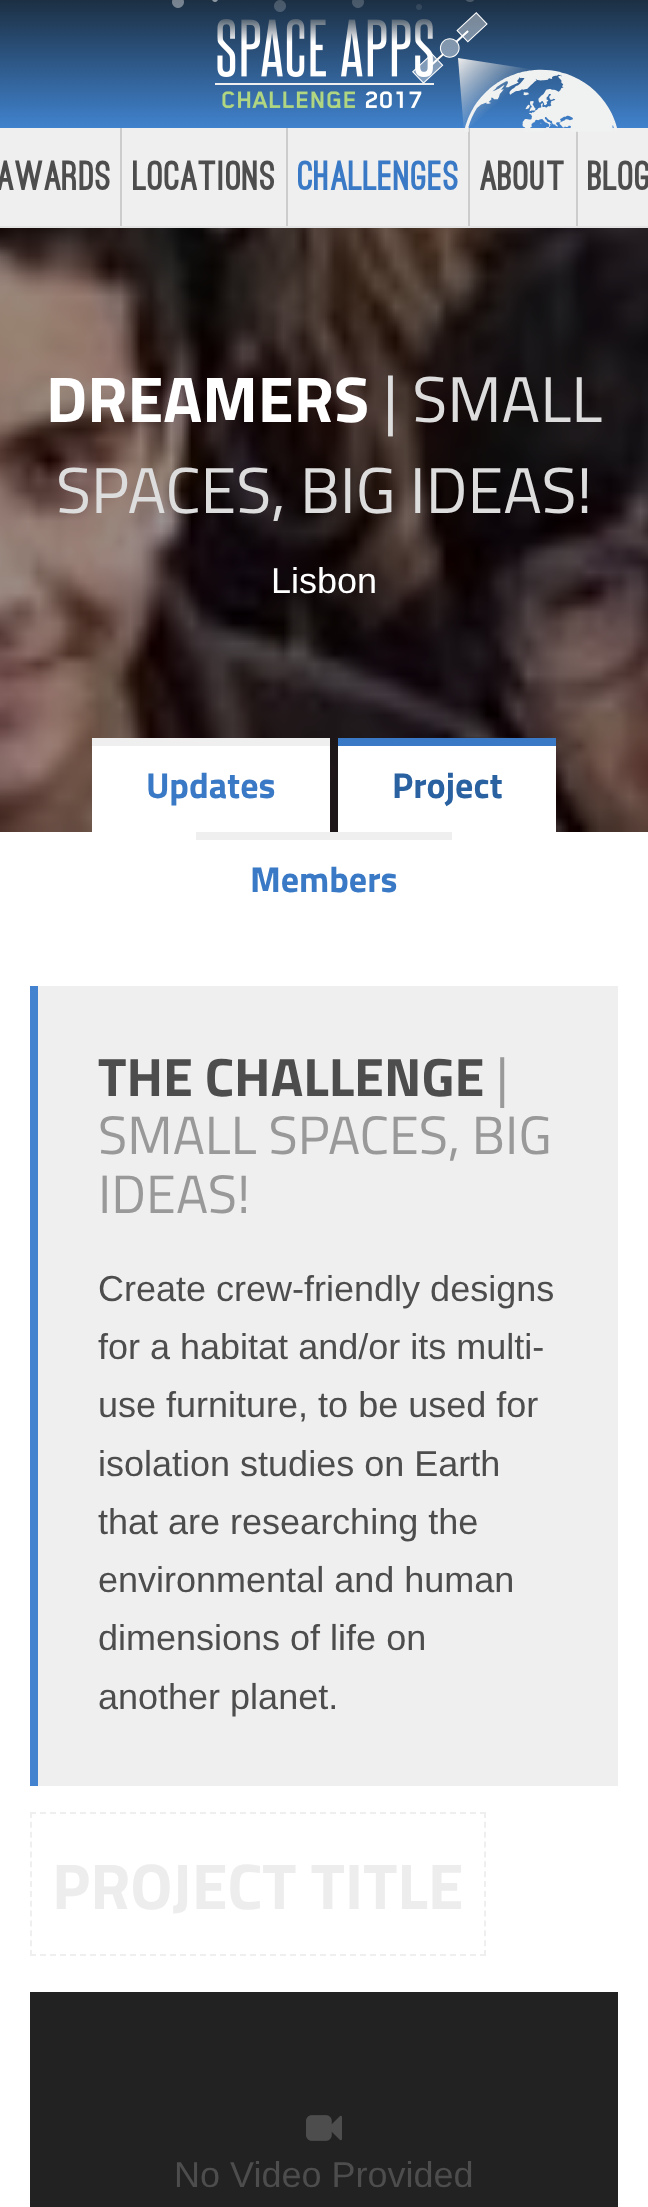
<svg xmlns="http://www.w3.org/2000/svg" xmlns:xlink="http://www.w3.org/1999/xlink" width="648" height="2207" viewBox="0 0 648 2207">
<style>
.cls-1{font:900 40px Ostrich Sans;letter-spacing:0.5px;fill:#4d4d4d}
.cls-2{font:900 40px Ostrich Sans;letter-spacing:0.5px;fill:#3979c5}
.cls-3{font:bold 64.75px Titillium Web;fill:#ffffff}
.cls-4{font:64.75px Titillium Web;fill:#dddddd}
.cls-5{font:36px Liberation Sans;fill:#ffffff}
.cls-6{font:bold 36px Titillium Web;fill:#3979c5}
.cls-7{font:bold 36px Titillium Web;fill:#2a61a1}
.cls-8{font:bold 54px Titillium Web;fill:#4d4d4d}
.cls-9{font:54px Titillium Web;fill:#999999}
.cls-10{font:36px Liberation Sans;fill:#4d4d4d}
.cls-11{font:bold 64.75px Titillium Web;fill:#ededed}
</style>
<defs>
<linearGradient id="g1" gradientUnits="userSpaceOnUse" x1="324" y1="128" x2="324" y2="0"><stop offset="0" stop-color="#4082cd"/><stop offset="1" stop-color="#1c2f43"/></linearGradient>
</defs>
<rect width="100%" height="100%" fill="#ffffff"/>
<rect fill="#efefef" x="0" y="128" width="648" height="98"/>
<rect fill="#e3e3e3" x="0" y="226" width="648" height="2"/>
<rect fill="url(#g1)" x="0" y="0" width="648" height="128"/>
<image xlink:href="image0.png" x="172" y="0" width="302" height="12"/>
<rect fill="#cccccc" x="468" y="128" width="2" height="98"/>
<rect fill="#cccccc" x="576" y="128" width="2" height="98"/>
<image xlink:href="image2.png" x="412" y="12" width="205" height="120"/>
<image xlink:href="image1.png" x="215" y="19" width="219" height="90"/>
<rect fill="#cccccc" x="120" y="128" width="2" height="98"/>
<rect fill="#cccccc" x="286" y="128" width="2" height="98"/>
<image xlink:href="image3.png" x="0" y="228" width="648" height="604"/>
<rect fill="#ffffff" x="92" y="746" width="238" height="86"/>
<rect fill="#efefef" x="92" y="738" width="238" height="8"/>
<rect fill="#ffffff" x="338" y="746" width="218" height="86"/>
<rect fill="#3979c5" x="338" y="738" width="218" height="8"/>
<rect fill="#efefef" x="196" y="832" width="256" height="8"/>
<rect fill="#efefef" x="38" y="986" width="580" height="800"/>
<rect fill="#4282cf" x="30" y="986" width="8" height="800"/>
<path fill="none" stroke="#efefef" stroke-width="2" stroke-dasharray="6 4" d="M30 1813H486"/>
<path fill="none" stroke="#efefef" stroke-width="2" stroke-dasharray="6 3.86" d="M485 1812V1956"/>
<path fill="none" stroke="#efefef" stroke-width="2" stroke-dasharray="6 4" d="M30 1955H486"/>
<path fill="none" stroke="#efefef" stroke-width="2" stroke-dasharray="6 3.86" d="M31 1812V1956"/>
<rect fill="#222222" x="30" y="1992" width="588" height="215"/>
<image xlink:href="image4.png" x="306" y="2115" width="36" height="26"/>
<text class="cls-1" x="-3" y="190">Awards</text>
<text class="cls-1" x="133" y="190">Locations</text>
<text class="cls-2" x="298" y="190">Challenges</text>
<text class="cls-1" x="480" y="190">About</text>
<text class="cls-1" x="588" y="190">Blog</text>
<text class="cls-3" x="46" y="422">DREAMERS</text>
<text class="cls-4" x="383" y="422">| SMALL</text>
<text class="cls-4" x="56" y="513">SPACES, BIG IDEAS!</text>
<text class="cls-5" x="271" y="593">Lisbon</text>
<text class="cls-6" x="146" y="798">Updates</text>
<text class="cls-7" x="392" y="798">Project</text>
<text class="cls-6" x="250" y="892">Members</text>
<text class="cls-8" x="98" y="1096">THE CHALLENGE</text>
<text class="cls-9" x="496" y="1096">|</text>
<text class="cls-9"><tspan x="98" y="1154">SMALL SPACES, BIG</tspan><tspan x="98" y="1213">IDEAS!</tspan></text>
<text class="cls-10"><tspan x="98" y="1301">Create crew-friendly designs</tspan><tspan x="98" y="1359">for a habitat and/or its multi-</tspan><tspan x="98" y="1417">use furniture, to be used for</tspan><tspan x="98" y="1476">isolation studies on Earth</tspan><tspan x="98" y="1534">that are researching the</tspan><tspan x="98" y="1592">environmental and human</tspan><tspan x="98" y="1650">dimensions of life on</tspan><tspan x="98" y="1709">another planet.</tspan></text>
<text class="cls-11" x="52" y="1909">PROJECT TITLE</text>
<text class="cls-10" x="174" y="2187">No Video Provided</text>
</svg>
